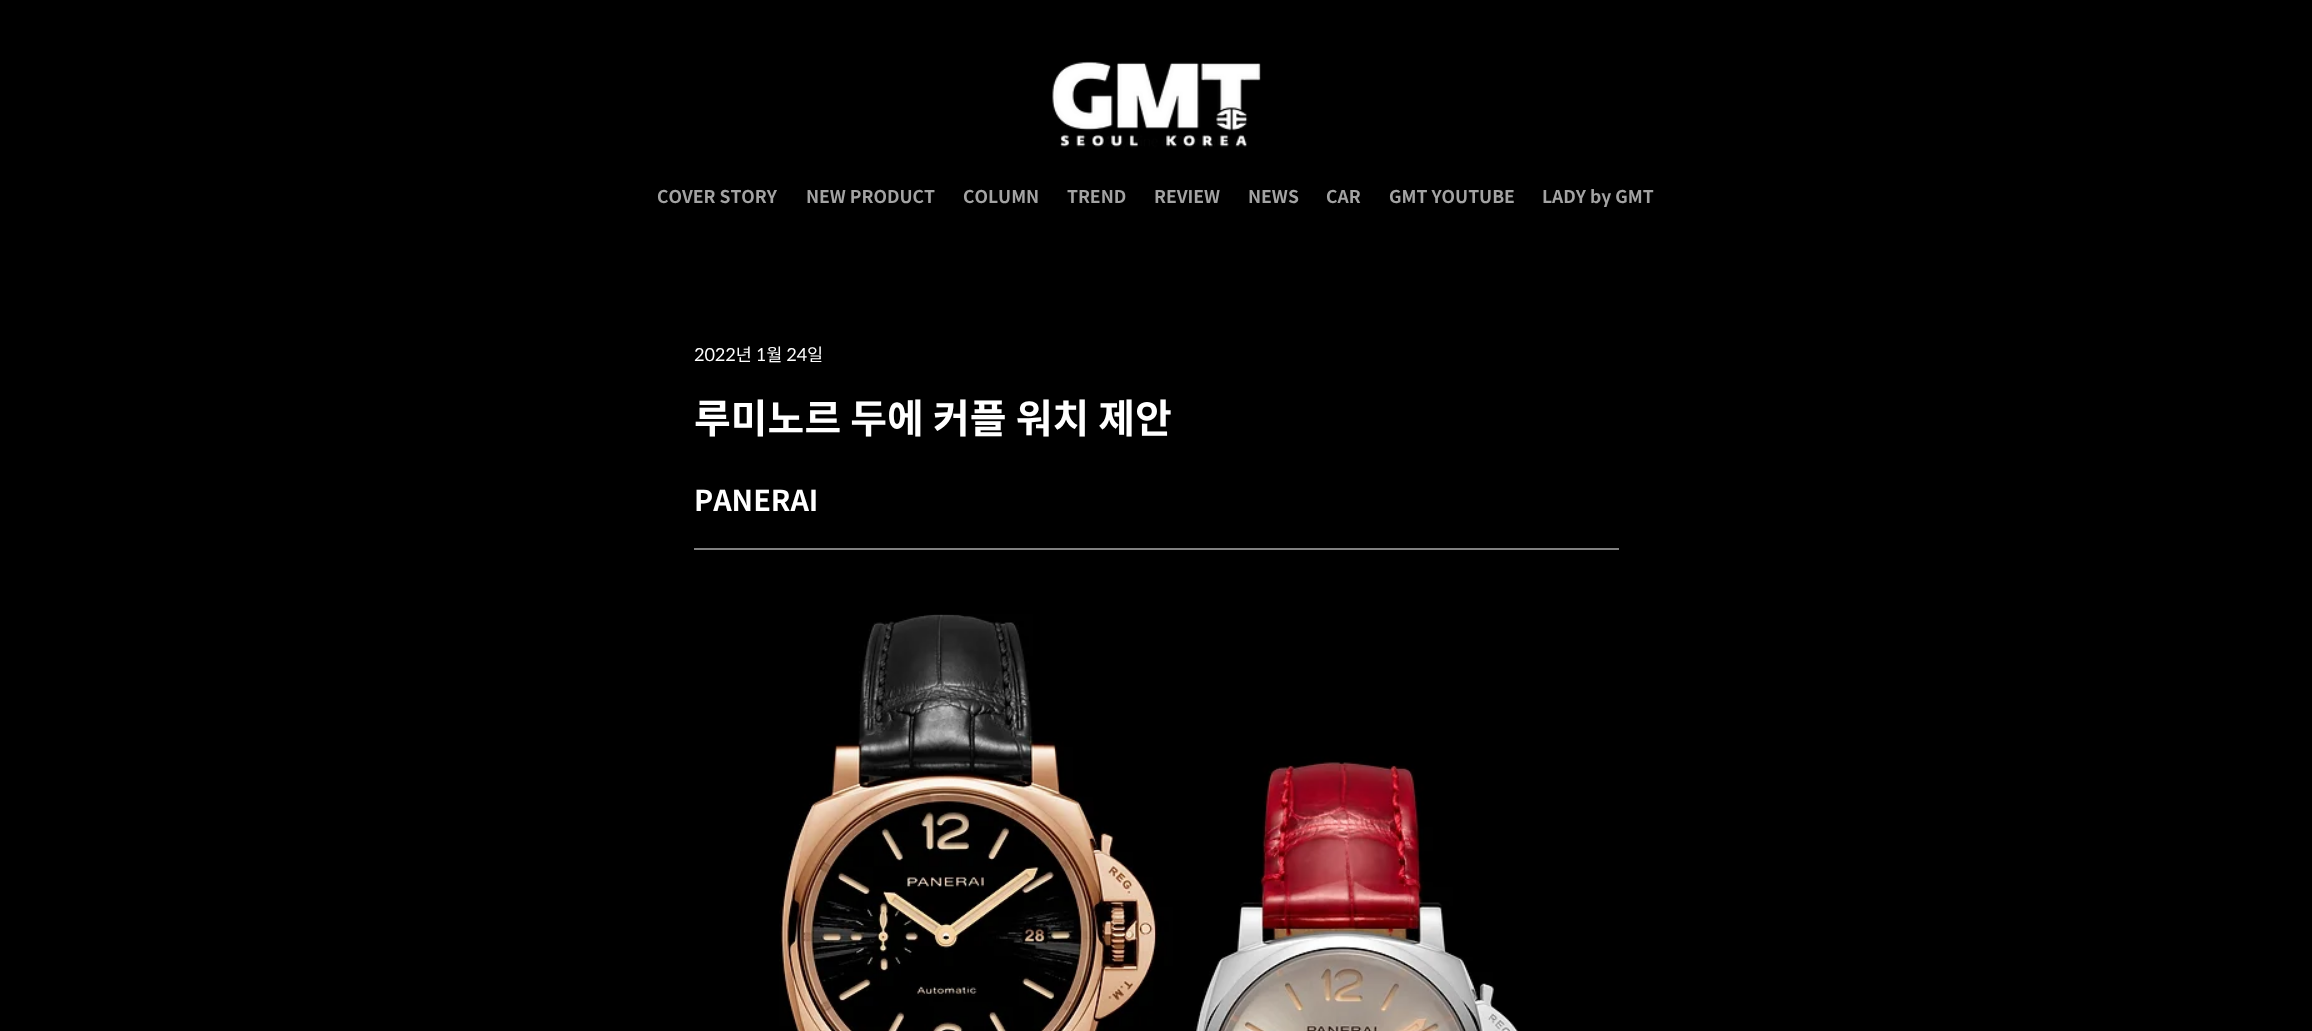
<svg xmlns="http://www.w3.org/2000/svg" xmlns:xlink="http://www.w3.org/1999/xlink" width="2312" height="1031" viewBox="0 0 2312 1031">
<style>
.cls-1{font:bold 17.5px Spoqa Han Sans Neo;fill:#a3a3a3}
.cls-2{font:17.5px Spoqa Han Sans Neo;fill:#ffffff}
.cls-3{font:bold 40px Spoqa Han Sans Neo;fill:#ffffff}
.cls-4{font:bold 28.75px Spoqa Han Sans Neo;fill:#ffffff}
</style>
<rect width="100%" height="100%" fill="#000000"/>
<image xlink:href="image0.png" x="1052" y="61" width="209" height="89"/>
<path fill="none" stroke="#ffffff" stroke-width="1.2" d="M694 549H1619"/>
<image xlink:href="image1.png" x="779" y="614" width="739" height="417"/>
<text class="cls-1" x="657" y="203">COVER STORY</text>
<text class="cls-1" x="806" y="203">NEW PRODUCT</text>
<text class="cls-1" x="963" y="203">COLUMN</text>
<text class="cls-1" x="1067" y="203">TREND</text>
<text class="cls-1" x="1154" y="203">REVIEW</text>
<text class="cls-1" x="1248" y="203">NEWS</text>
<text class="cls-1" x="1326" y="203">CAR</text>
<text class="cls-1" x="1389" y="203">GMT YOUTUBE</text>
<text class="cls-1" x="1542" y="203">LADY by GMT</text>
<text class="cls-2" x="694" y="361">2022년 1월 24일</text>
<text class="cls-3" x="694" y="433">루미노르 두에 커플 워치 제안</text>
<text class="cls-4" x="694" y="511">PANERAI</text>
</svg>
